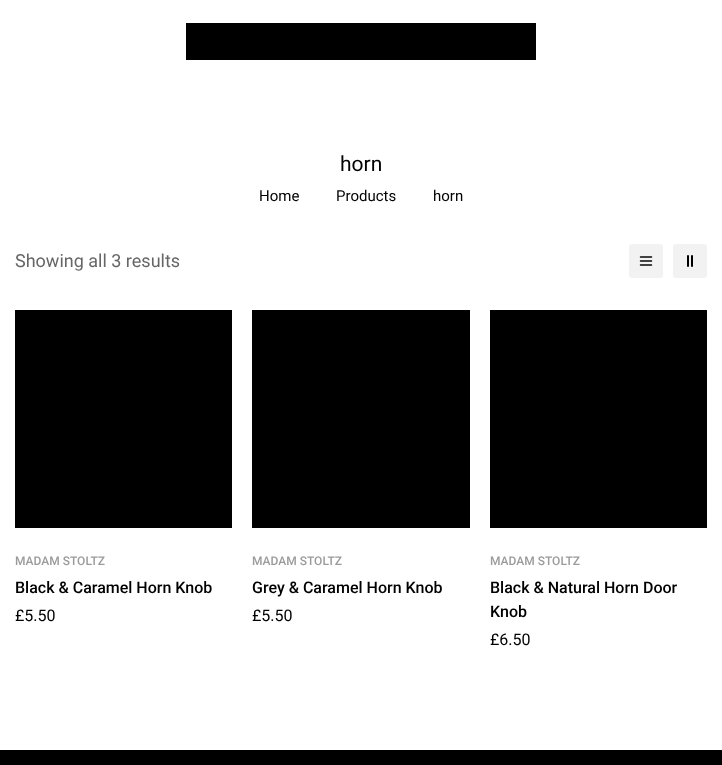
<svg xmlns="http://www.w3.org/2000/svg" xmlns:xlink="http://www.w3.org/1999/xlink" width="722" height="765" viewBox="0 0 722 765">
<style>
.cls-1{font:21px Roboto;fill:#000000}
.cls-2{font:15px Roboto;fill:#000000}
.cls-3{font:18px Roboto;fill:#666666}
.cls-4{font:500 12px Roboto;fill:#9b9b9b}
.cls-5{font:500 16px Roboto;fill:#000000}
.cls-6{font:16px Roboto;fill:#000000}
</style>
<rect width="100%" height="100%" fill="#ffffff"/>
<rect fill="#000000" x="186" y="23" width="350" height="37"/>
<rect fill="#f2f2f2" x="629" y="244" width="34" height="34" rx="3"/>
<image xlink:href="image0.png" x="639" y="256" width="14" height="10"/>
<rect fill="#f2f2f2" x="673" y="244" width="34" height="34" rx="3"/>
<rect fill="#000000" x="687" y="255" width="2" height="12" rx="1"/>
<rect fill="#000000" x="691" y="255" width="2" height="12" rx="1"/>
<rect fill="#000000" x="15" y="310" width="217" height="218"/>
<rect fill="#000000" x="252" y="310" width="218" height="218"/>
<rect fill="#000000" x="490" y="310" width="217" height="218"/>
<rect fill="#000000" x="0" y="750" width="722" height="15"/>
<text class="cls-1" x="340" y="171">horn</text>
<text class="cls-2" x="259" y="201">Home</text>
<text class="cls-2" x="336" y="201">Products</text>
<text class="cls-2" x="433" y="201">horn</text>
<text class="cls-3" x="15" y="267">Showing all 3 results</text>
<text class="cls-4" x="15" y="565">MADAM STOLTZ</text>
<text class="cls-5" x="15" y="593">Black &amp; Caramel Horn Knob</text>
<text class="cls-6" x="15" y="621">£5.50</text>
<text class="cls-4" x="252" y="565">MADAM STOLTZ</text>
<text class="cls-5" x="252" y="593">Grey &amp; Caramel Horn Knob</text>
<text class="cls-6" x="252" y="621">£5.50</text>
<text class="cls-4" x="490" y="565">MADAM STOLTZ</text>
<text class="cls-5"><tspan x="490" y="593">Black &amp; Natural Horn Door</tspan><tspan x="490" y="617">Knob</tspan></text>
<text class="cls-6" x="490" y="645">£6.50</text>
</svg>
